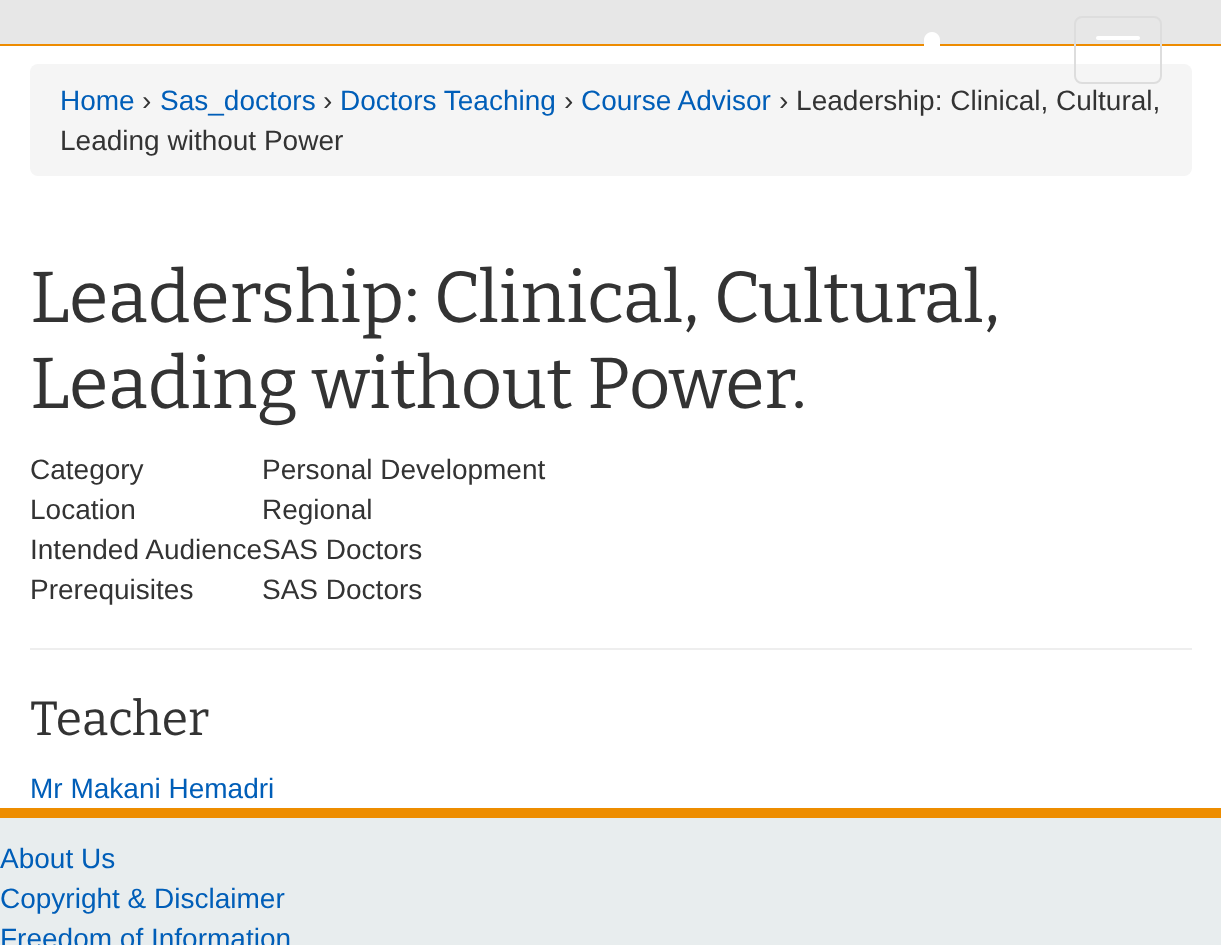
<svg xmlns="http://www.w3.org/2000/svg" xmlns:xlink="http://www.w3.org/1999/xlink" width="1221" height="945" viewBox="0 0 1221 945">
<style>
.cls-1{font:28px Liberation Sans;fill:#005eb8}
.cls-2{font:28px Liberation Sans;fill:#333333}
.cls-3{font:100 72px Bitter;fill:#333333}
.cls-4{font:100 48px Bitter;fill:#333333}
</style>
<rect width="100%" height="100%" fill="#ffffff"/>
<rect fill="#e7e7e7" x="0" y="0" width="1221" height="44"/>
<rect fill="#ed8b00" x="0" y="44" width="1221" height="2"/>
<image xlink:href="image0.png" x="924" y="32" width="16" height="14"/>
<rect fill="#f5f5f5" x="30" y="64" width="1162" height="112" rx="8"/>
<rect fill="none" stroke="#dddddd" stroke-width="2" x="1075" y="17" width="86" height="66" rx="7"/>
<rect fill="#ffffff" x="1096" y="36" width="44" height="4" rx="2"/>
<rect fill="#eeeeee" x="30" y="648" width="1162" height="2"/>
<rect fill="#e8edee" x="0" y="818" width="1221" height="127"/>
<rect fill="#ed8d00" x="0" y="808" width="1221" height="10"/>
<text class="cls-1" x="60" y="110">Home</text>
<text class="cls-2" x="142" y="110">›</text>
<text class="cls-1" x="160" y="110">Sas_doctors</text>
<text class="cls-2" x="323" y="110">›</text>
<text class="cls-1" x="340" y="110">Doctors Teaching</text>
<text class="cls-2" x="564" y="110">›</text>
<text class="cls-1" x="581" y="110">Course Advisor</text>
<text class="cls-2" x="779" y="110">› Leadership: Clinical, Cultural,</text>
<text class="cls-2" x="60" y="150">Leading without Power</text>
<text class="cls-3"><tspan x="30" y="322">Leadership: Clinical, Cultural,</tspan><tspan x="30" y="408">Leading without Power.</tspan></text>
<text class="cls-2" x="30" y="479">Category</text>
<text class="cls-2" x="262" y="479">Personal Development</text>
<text class="cls-2" x="30" y="519">Location</text>
<text class="cls-2" x="262" y="519">Regional</text>
<text class="cls-2"><tspan x="30" y="559">Intended AudienceSAS Doctors</tspan><tspan x="30" y="599">Prerequisites</tspan></text>
<text class="cls-2" x="262" y="599">SAS Doctors</text>
<text class="cls-4" x="30" y="735">Teacher</text>
<text class="cls-1" x="30" y="798">Mr Makani Hemadri</text>
<text class="cls-1"><tspan x="0" y="868">About Us</tspan><tspan x="0" y="908">Copyright &amp; Disclaimer</tspan><tspan x="0" y="948">Freedom of Information</tspan></text>
</svg>
